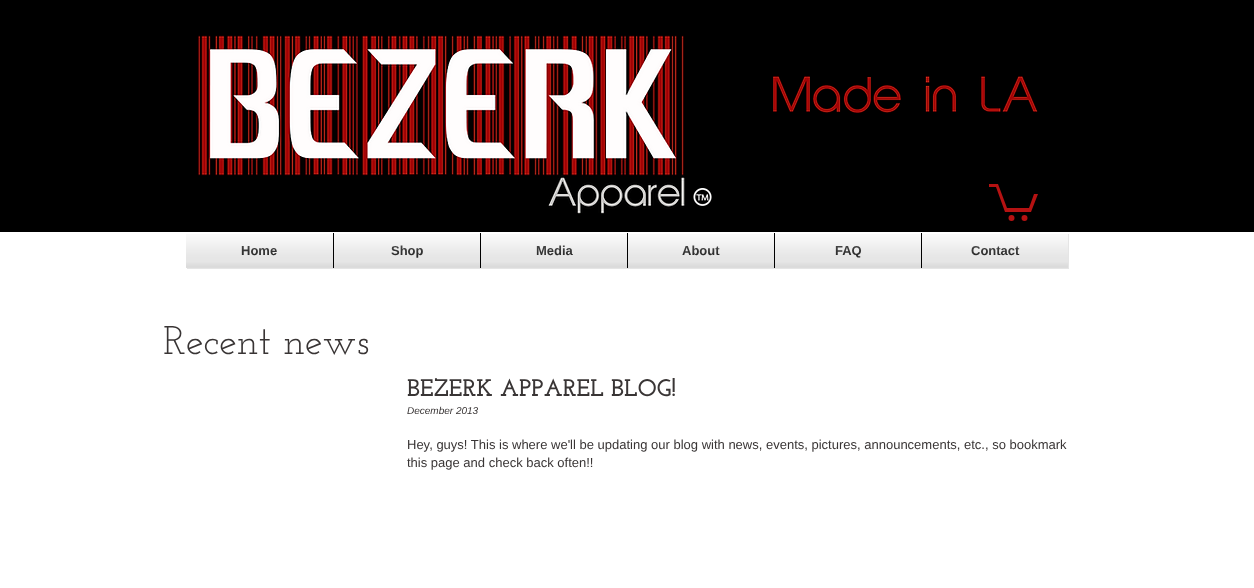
<svg xmlns="http://www.w3.org/2000/svg" xmlns:xlink="http://www.w3.org/1999/xlink" width="1254" height="588" viewBox="0 0 1254 588">
<style>
.cls-1{font:bold 13px Liberation Sans;fill:#000000}
.cls-2{font:40px Josefin Slab;fill:#393535}
.cls-3{font:bold 24px Josefin Slab;fill:#393535}
.cls-4{font:italic 10px Liberation Sans;fill:#393535}
.cls-5{font:13px Liberation Sans;fill:#393535}
</style>
<rect width="100%" height="100%" fill="#ffffff"/>
<rect fill="#000000" x="0" y="0" width="1254" height="232"/>
<image xlink:href="image0.png" x="198" y="35" width="487" height="179"/>
<image xlink:href="image1.png" x="773" y="76" width="265" height="37"/>
<image xlink:href="image2.png" x="693" y="188" width="19" height="18"/>
<path fill="#b51212" d="M1038 194L1031 212H1005L996 187H989V184H998L1007 208H1029L1034 194"/>
<circle fill="#b51212" cx="1024.5" cy="218" r="3"/>
<circle fill="#b51212" cx="1011.5" cy="218" r="3"/>
<rect fill="#000000" fill-opacity="0.1" filter="blur(0.5px)" x="187" y="234" width="882" height="35"/>
<rect fill="#ffffff" x="186" y="233" width="147" height="35"/>
<rect fill="#ffffff" x="334" y="233" width="146" height="35"/>
<rect fill="#000000" x="333" y="233" width="1" height="35"/>
<rect fill="#ffffff" x="481" y="233" width="146" height="35"/>
<rect fill="#000000" x="480" y="233" width="1" height="35"/>
<rect fill="#ffffff" x="628" y="233" width="146" height="35"/>
<rect fill="#000000" x="627" y="233" width="1" height="35"/>
<rect fill="#ffffff" x="775" y="233" width="146" height="35"/>
<rect fill="#000000" x="774" y="233" width="1" height="35"/>
<rect fill="#ffffff" x="922" y="233" width="146" height="35"/>
<rect fill="#000000" x="921" y="233" width="1" height="35"/>
<text class="cls-1" x="241" y="255">Home</text>
<image xlink:href="image3.png" x="242" y="246" width="35" height="9"/>
<image xlink:href="image4.png" x="186" y="234" width="147" height="34"/>
<text class="cls-1" x="391" y="255">Shop</text>
<image xlink:href="image5.png" x="391" y="245" width="32" height="13"/>
<image xlink:href="image6.png" x="334" y="234" width="146" height="34"/>
<text class="cls-1" x="536" y="255">Media</text>
<image xlink:href="image7.png" x="536" y="245" width="37" height="10"/>
<image xlink:href="image8.png" x="481" y="234" width="146" height="34"/>
<text class="cls-1" x="682" y="255">About</text>
<image xlink:href="image9.png" x="682" y="245" width="38" height="10"/>
<image xlink:href="image10.png" x="628" y="234" width="146" height="34"/>
<text class="cls-1" x="835" y="255">FAQ</text>
<image xlink:href="image11.png" x="835" y="245" width="26" height="13"/>
<image xlink:href="image12.png" x="775" y="234" width="146" height="34"/>
<text class="cls-1" x="971" y="255">Contact</text>
<image xlink:href="image13.png" x="971" y="245" width="48" height="11"/>
<image xlink:href="image14.png" x="922" y="234" width="146" height="34"/>
<text class="cls-2" x="163" y="354">Recent news</text>
<text class="cls-3" x="407" y="396">BEZERK APPAREL BLOG!</text>
<text class="cls-4" x="407" y="414">December 2013</text>
<text class="cls-5"><tspan x="407" y="449">Hey, guys! This is where we'll be updating our blog with news, events, pictures, announcements, etc., so bookmark</tspan><tspan x="407" y="467">this page and check back often!!</tspan></text>
</svg>
